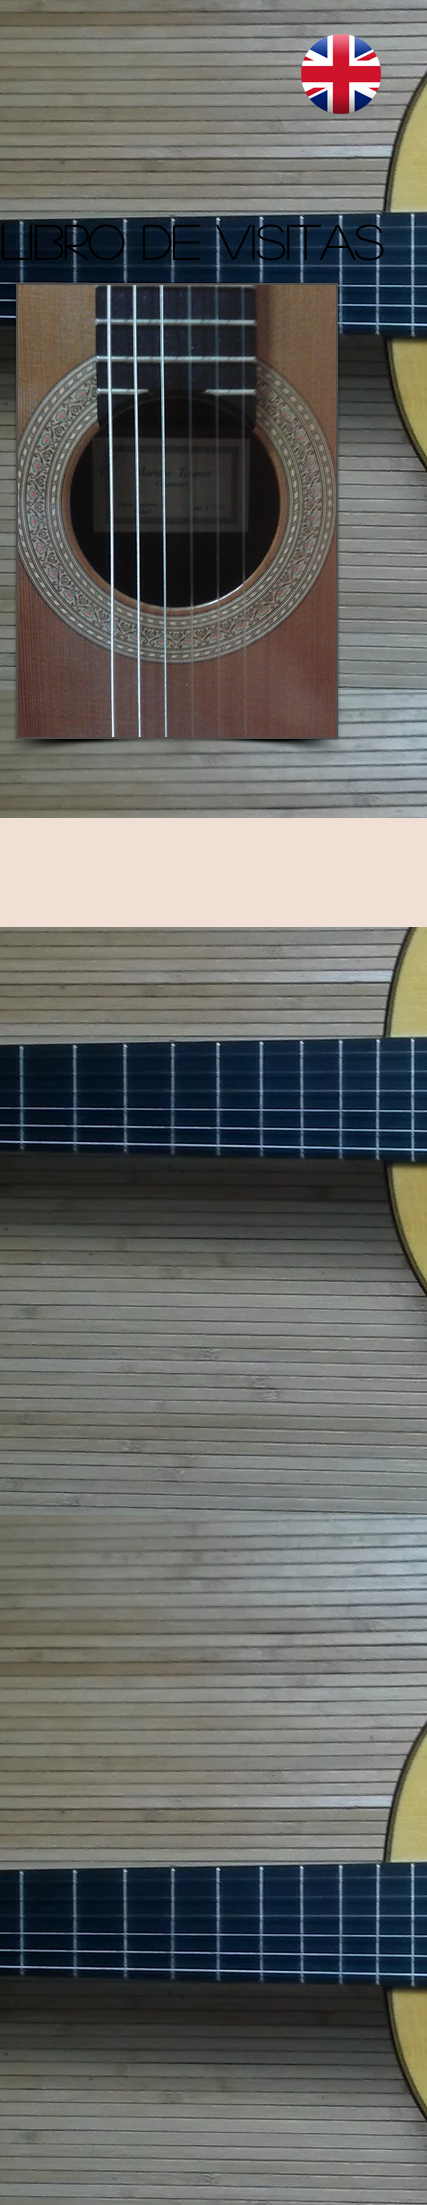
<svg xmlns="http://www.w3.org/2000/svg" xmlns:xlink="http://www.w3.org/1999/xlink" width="427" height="2205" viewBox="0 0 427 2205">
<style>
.cls-1{font:bold 48px 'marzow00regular';fill:#000000}
</style>
<rect width="100%" height="100%" fill="#ffffff"/>
<image xlink:href="image0.png" x="0" y="0" width="427" height="2205"/>
<image xlink:href="image1.png" x="301" y="34" width="80" height="80"/>
<rect fill="#000000" fill-opacity="0.5" filter="blur(1.5px)" x="16" y="283" width="322" height="456"/>
<rect fill="#4f4e4a" x="16" y="283" width="322" height="456"/>
<image xlink:href="image2.png" x="18" y="285" width="318" height="452"/>
<image xlink:href="image3.png" x="10" y="739" width="138" height="16"/>
<image xlink:href="image4.png" x="206" y="739" width="141" height="17"/>
<rect fill="#efdfd4" x="0" y="818" width="427" height="109"/>
<text class="cls-1" x="0" y="260">Libro de visitas</text>
</svg>
